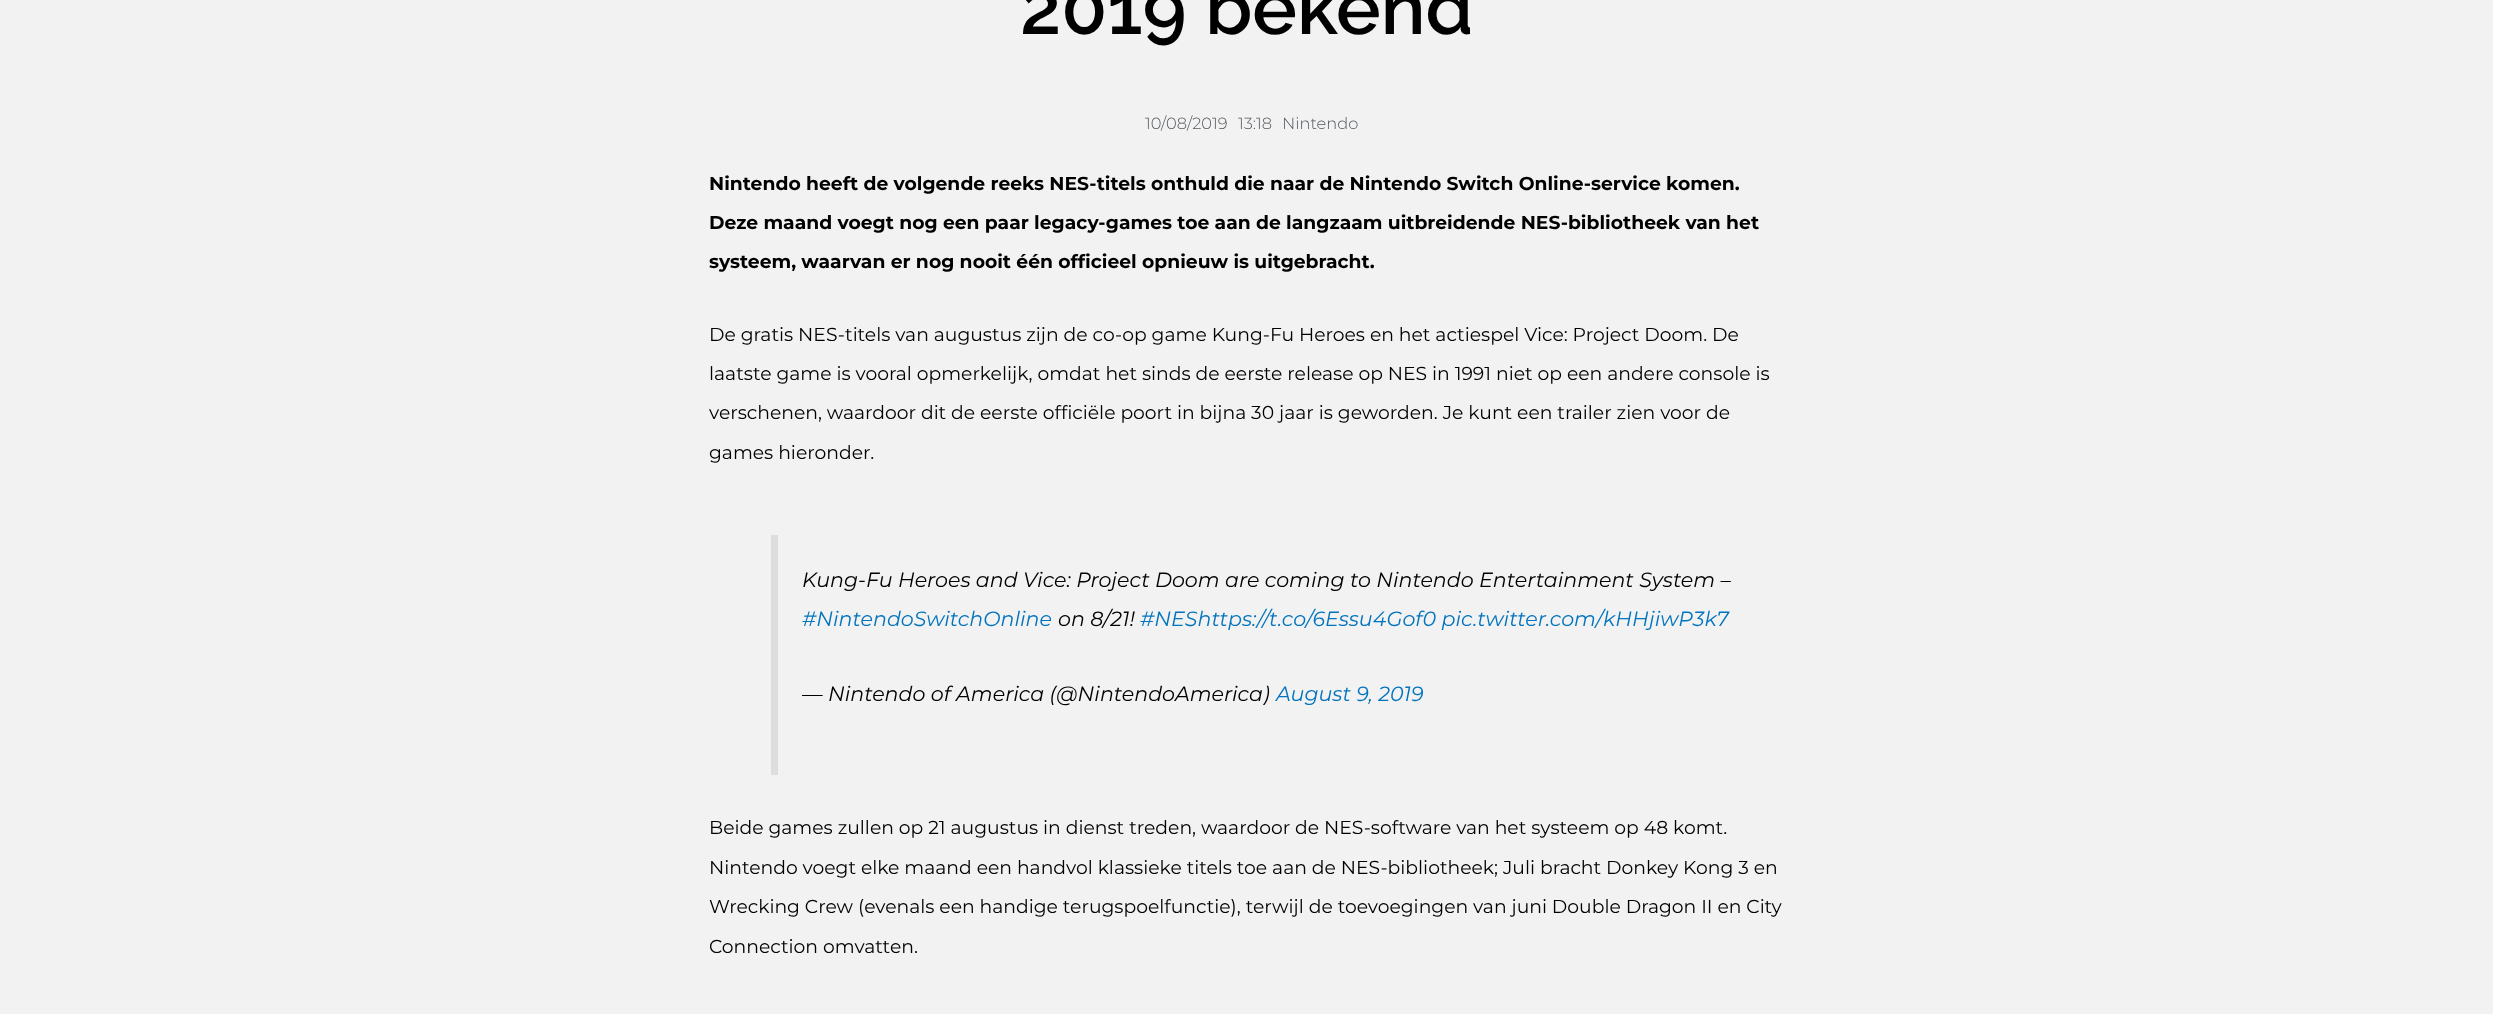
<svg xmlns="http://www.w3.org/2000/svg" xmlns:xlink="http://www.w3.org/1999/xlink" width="2493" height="1014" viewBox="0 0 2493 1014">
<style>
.cls-1{font:600 75px Raleway;fill:#000000}
.cls-2{font:300 16.25px Montserrat;fill:#54595f}
.cls-3{font:bold 18.75px Montserrat;fill:#000000}
.cls-4{font:18.75px Montserrat;fill:#000000}
.cls-5{font:italic 20.6px Montserrat;fill:#000000}
.cls-6{font:italic 20.6px Montserrat;fill:#0274be}
</style>
<rect width="100%" height="100%" fill="#f2f2f2"/>
<rect fill="#dddddd" x="771" y="535" width="7" height="240"/>
<text class="cls-1" x="1020" y="34">2019 bekend</text>
<text class="cls-2" x="1145" y="129">10/08/2019</text>
<text class="cls-2" x="1238" y="129">13:18</text>
<text class="cls-2" x="1282" y="129">Nintendo</text>
<text class="cls-3" x="709" y="190">Nintendo heeft de volgende reeks NES-titels onthuld die naar de Nintendo Switch Online-service komen.</text>
<text class="cls-3" x="709" y="229">Deze maand voegt nog een paar legacy-games toe aan de langzaam uitbreidende NES-bibliotheek van het</text>
<text class="cls-3" x="709" y="268">systeem, waarvan er nog nooit één officieel opnieuw is uitgebracht.</text>
<text class="cls-4" x="709" y="341">De gratis NES-titels van augustus zijn de co-op game Kung-Fu Heroes en het actiespel Vice: Project Doom. De</text>
<text class="cls-4" x="709" y="380">laatste game is vooral opmerkelijk, omdat het sinds de eerste release op NES in 1991 niet op een andere console is</text>
<text class="cls-4" x="709" y="419">verschenen, waardoor dit de eerste officiële poort in bijna 30 jaar is geworden. Je kunt een trailer zien voor de</text>
<text class="cls-4" x="709" y="459">games hieronder.</text>
<text class="cls-5" x="802" y="587">Kung-Fu Heroes and Vice: Project Doom are coming to Nintendo Entertainment System –</text>
<text class="cls-6" x="802" y="626">#NintendoSwitchOnline</text>
<text class="cls-5" x="1058" y="626">on 8/21!</text>
<text class="cls-6" x="1140" y="626">#NEShttps://t.co/6Essu4Gof0 pic.twitter.com/kHHjiwP3k7</text>
<text class="cls-5" x="802" y="701">— Nintendo of America (@NintendoAmerica)</text>
<text class="cls-6" x="1276" y="701">August 9, 2019</text>
<text class="cls-4" x="709" y="834">Beide games zullen op 21 augustus in dienst treden, waardoor de NES-software van het systeem op 48 komt.</text>
<text class="cls-4" x="709" y="874">Nintendo voegt elke maand een handvol klassieke titels toe aan de NES-bibliotheek; Juli bracht Donkey Kong 3 en</text>
<text class="cls-4" x="709" y="913">Wrecking Crew (evenals een handige terugspoelfunctie), terwijl de toevoegingen van juni Double Dragon II en City</text>
<text class="cls-4" x="709" y="953">Connection omvatten.</text>
</svg>
